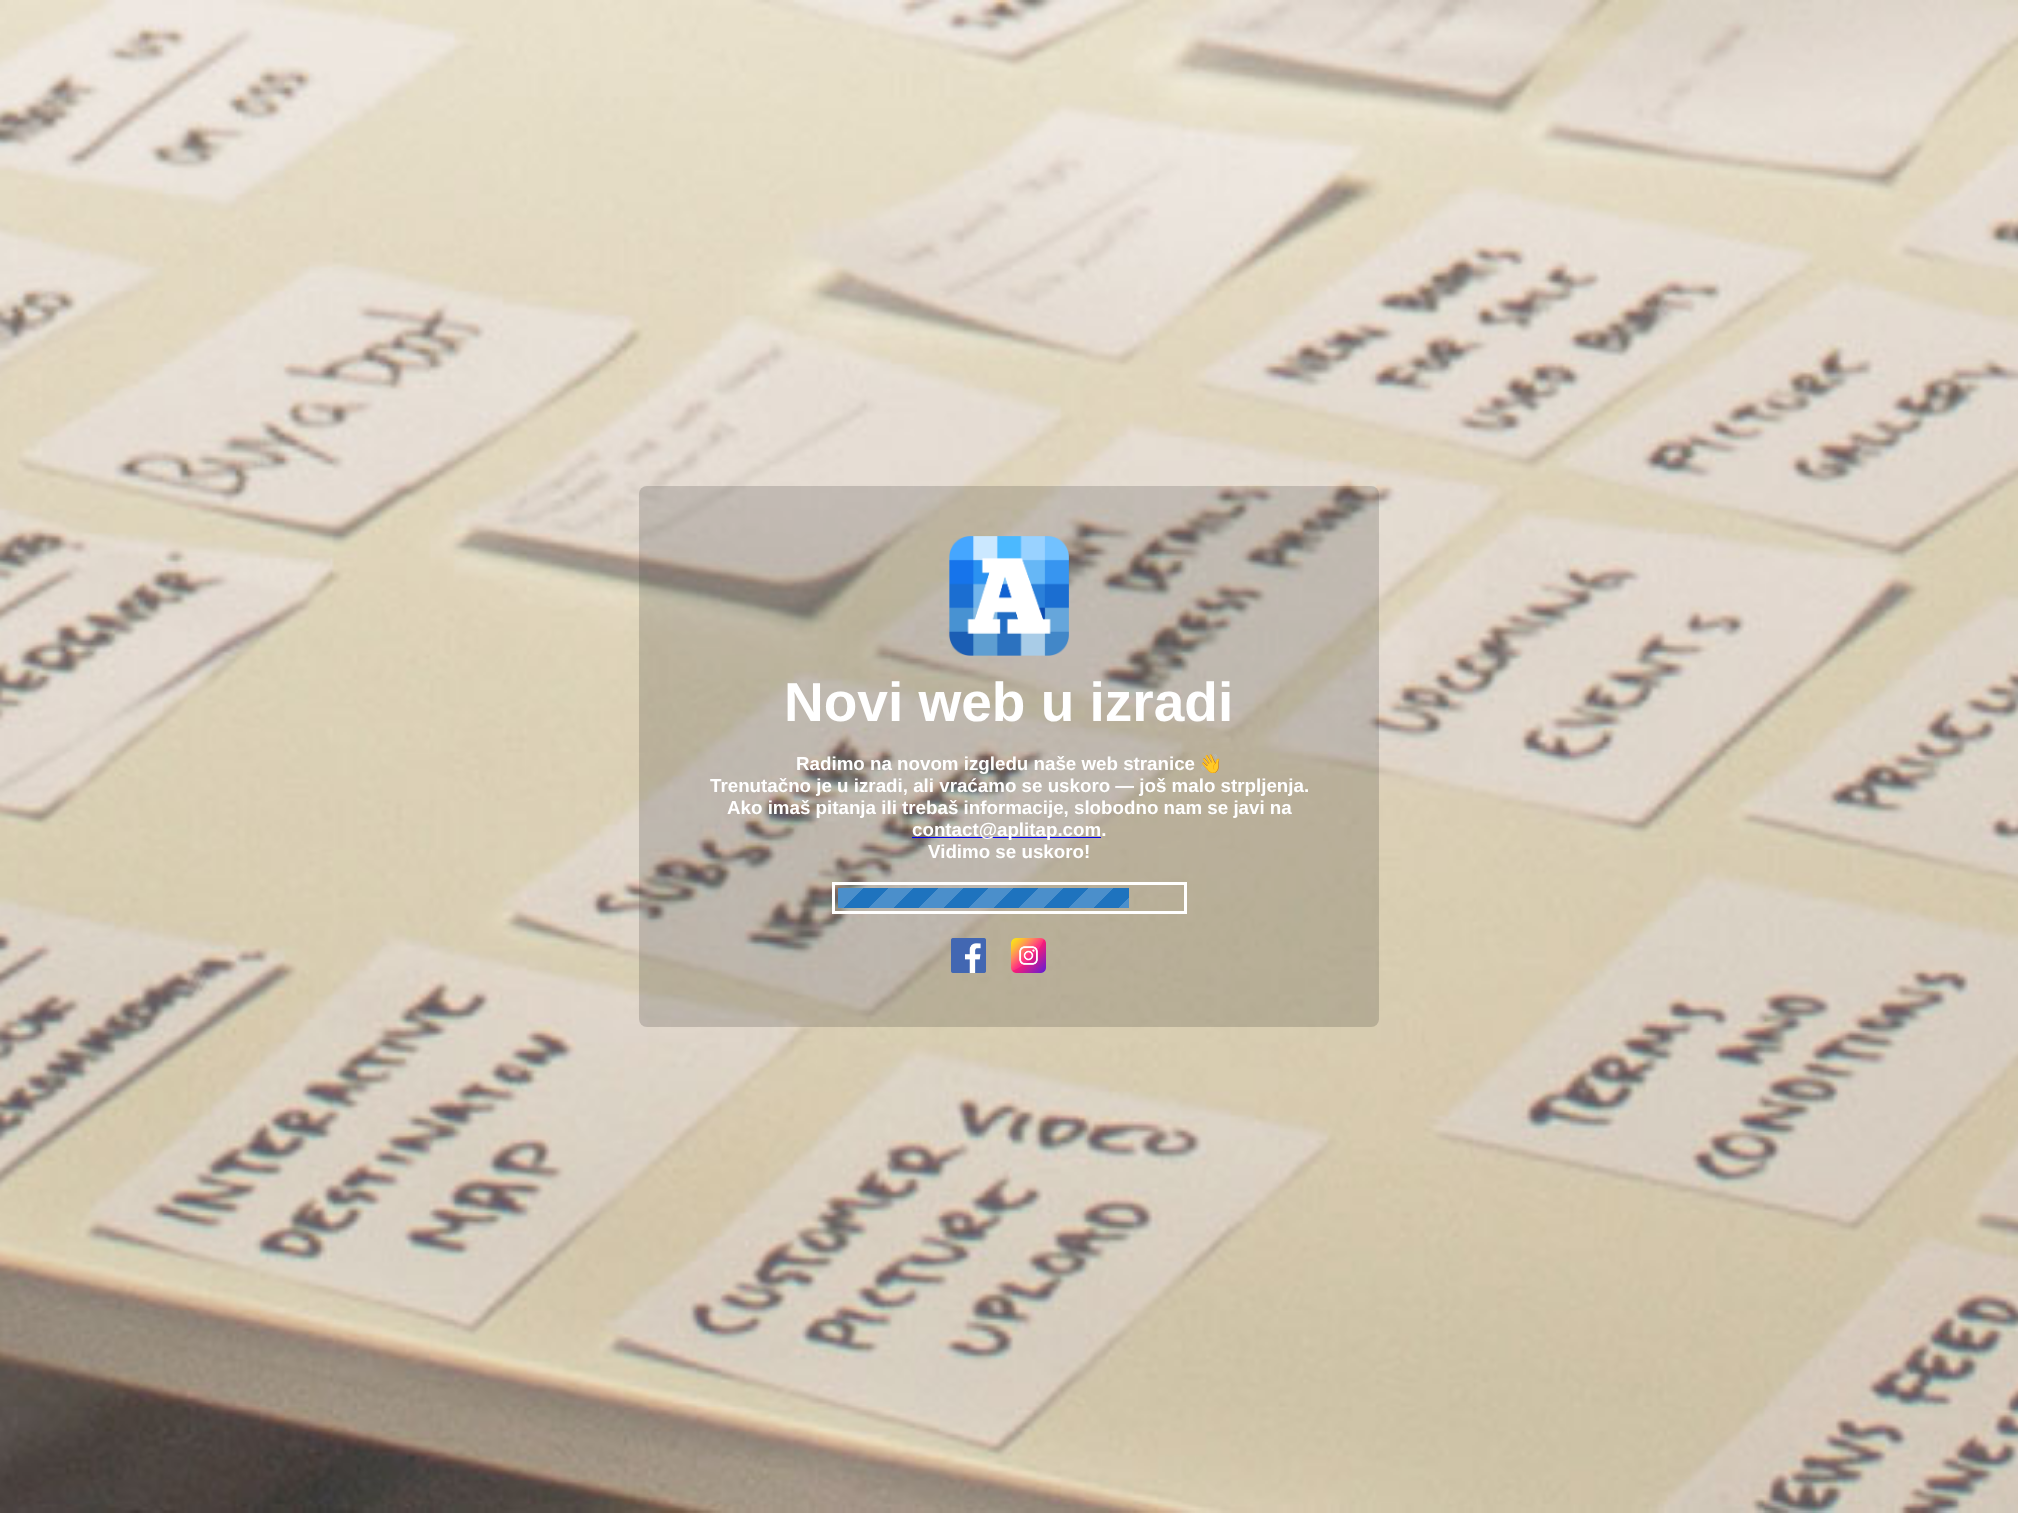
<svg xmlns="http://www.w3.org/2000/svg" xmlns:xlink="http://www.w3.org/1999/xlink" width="2018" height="1513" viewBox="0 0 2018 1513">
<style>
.cls-1{font:bold 55px Liberation Sans;fill:#ffffff}
.cls-2{font:bold 18.75px Liberation Sans;fill:#ffffff}
.cls-3{font:bold 18.75px Noto Color Emoji;fill:#ffffff}
</style>
<defs>
<linearGradient id="g1" gradientUnits="userSpaceOnUse" x1="838" y1="888" x2="888" y2="938"><stop offset="0.25" stop-color="#4b8fcb"/><stop offset="0.25" stop-color="#1e73be"/><stop offset="0.5" stop-color="#1e73be"/><stop offset="0.5" stop-color="#4b8fcb"/><stop offset="0.75" stop-color="#4b8fcb"/><stop offset="0.75" stop-color="#1e73be"/><stop offset="1" stop-color="#1e73be"/></linearGradient>
<linearGradient id="g2" gradientUnits="userSpaceOnUse" x1="888" y1="888" x2="938" y2="938"><stop offset="0.25" stop-color="#4b8fcb"/><stop offset="0.25" stop-color="#1e73be"/><stop offset="0.5" stop-color="#1e73be"/><stop offset="0.5" stop-color="#4b8fcb"/><stop offset="0.75" stop-color="#4b8fcb"/><stop offset="0.75" stop-color="#1e73be"/><stop offset="1" stop-color="#1e73be"/></linearGradient>
<linearGradient id="g3" gradientUnits="userSpaceOnUse" x1="938" y1="888" x2="988" y2="938"><stop offset="0.25" stop-color="#4b8fcb"/><stop offset="0.25" stop-color="#1e73be"/><stop offset="0.5" stop-color="#1e73be"/><stop offset="0.5" stop-color="#4b8fcb"/><stop offset="0.75" stop-color="#4b8fcb"/><stop offset="0.75" stop-color="#1e73be"/><stop offset="1" stop-color="#1e73be"/></linearGradient>
<linearGradient id="g4" gradientUnits="userSpaceOnUse" x1="988" y1="888" x2="1038" y2="938"><stop offset="0.25" stop-color="#4b8fcb"/><stop offset="0.25" stop-color="#1e73be"/><stop offset="0.5" stop-color="#1e73be"/><stop offset="0.5" stop-color="#4b8fcb"/><stop offset="0.75" stop-color="#4b8fcb"/><stop offset="0.75" stop-color="#1e73be"/><stop offset="1" stop-color="#1e73be"/></linearGradient>
<linearGradient id="g5" gradientUnits="userSpaceOnUse" x1="1038" y1="888" x2="1088" y2="938"><stop offset="0.25" stop-color="#4b8fcb"/><stop offset="0.25" stop-color="#1e73be"/><stop offset="0.5" stop-color="#1e73be"/><stop offset="0.5" stop-color="#4b8fcb"/><stop offset="0.75" stop-color="#4b8fcb"/><stop offset="0.75" stop-color="#1e73be"/><stop offset="1" stop-color="#1e73be"/></linearGradient>
<linearGradient id="g6" gradientUnits="userSpaceOnUse" x1="1088" y1="888" x2="1138" y2="938"><stop offset="0.25" stop-color="#4b8fcb"/><stop offset="0.25" stop-color="#1e73be"/><stop offset="0.5" stop-color="#1e73be"/><stop offset="0.5" stop-color="#4b8fcb"/><stop offset="0.75" stop-color="#4b8fcb"/><stop offset="0.75" stop-color="#1e73be"/><stop offset="1" stop-color="#1e73be"/></linearGradient>
</defs>
<rect width="100%" height="100%" fill="#ffffff"/>
<image xlink:href="image0.png" x="0" y="0" width="2018" height="1513"/>
<rect fill="#0f0f0f" fill-opacity="0.16" x="639" y="486" width="740" height="541" rx="8"/>
<image xlink:href="image1.png" x="949" y="536" width="120" height="120"/>
<rect fill="#0000ee" x="912" y="837" width="189" height="1"/>
<rect fill="none" stroke="#ffffff" stroke-width="3" x="833.5" y="883.5" width="352" height="29"/>
<rect fill="url(#g1)" x="838" y="888" width="50" height="20"/>
<rect fill="url(#g2)" x="888" y="888" width="50" height="20"/>
<rect fill="url(#g3)" x="938" y="888" width="50" height="20"/>
<rect fill="url(#g4)" x="988" y="888" width="50" height="20"/>
<rect fill="url(#g5)" x="1038" y="888" width="50" height="20"/>
<rect fill="url(#g6)" x="1088" y="888" width="41" height="20"/>
<image xlink:href="image2.png" x="951" y="938" width="35" height="35"/>
<image xlink:href="image3.png" x="1011" y="938" width="35" height="35"/>
<text class="cls-1" x="784" y="721">Novi web u izradi</text>
<text class="cls-2" x="796" y="770">Radimo na novom izgledu naše web stranice</text>
<text class="cls-3" x="1199" y="770">👋</text>
<text class="cls-2" x="710" y="792">Trenutačno je u izradi, ali vraćamo se uskoro — još malo strpljenja.</text>
<text class="cls-2" x="727" y="814">Ako imaš pitanja ili trebaš informacije, slobodno nam se javi na</text>
<text class="cls-2" x="912" y="836">contact@aplitap.com.</text>
<text class="cls-2" x="928" y="858">Vidimo se uskoro!</text>
</svg>
